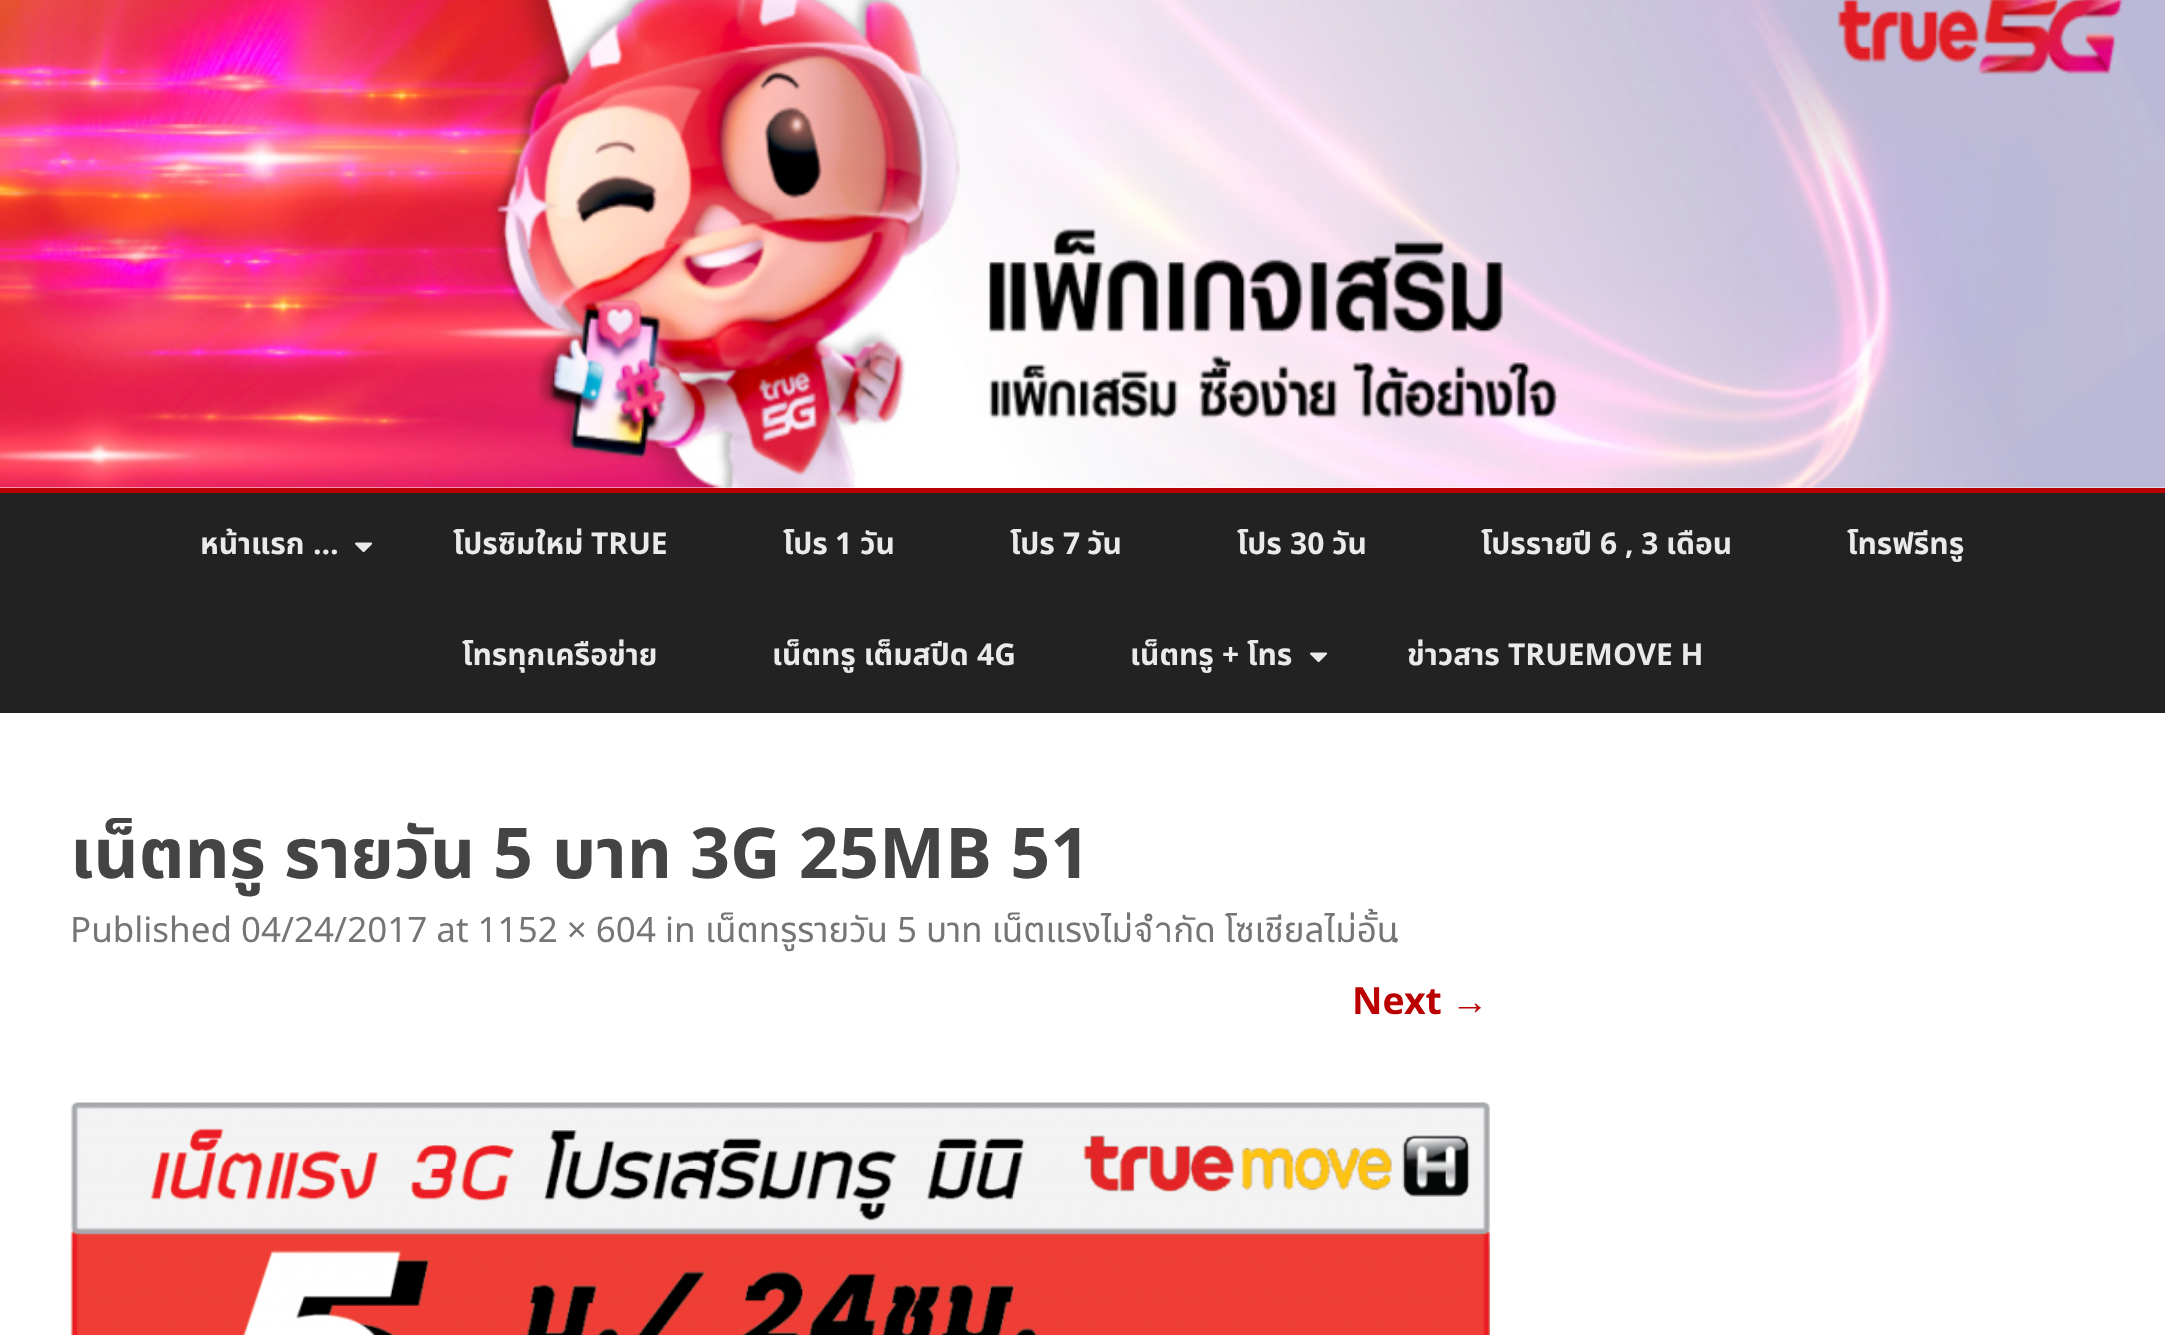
<svg xmlns="http://www.w3.org/2000/svg" xmlns:xlink="http://www.w3.org/1999/xlink" width="2165" height="1335" viewBox="0 0 2165 1335">
<style>
.cls-1{font:bold 30px Noto Sans Thai;fill:#eaeaea}
.cls-2{font:bold 30px Noto Sans;fill:#eaeaea}
.cls-3{font:bold 70px Noto Sans Thai;fill:#444444}
.cls-4{font:bold 70px Noto Sans;fill:#444444}
.cls-5{font:35px Noto Sans;fill:#757575}
.cls-6{font:35px Noto Sans Thai;fill:#757575}
.cls-7{font:bold 37.5px Noto Sans;fill:#ba0000}
.cls-8{font:bold 37.5px Liberation Sans;fill:#ba0000}
</style>
<rect width="100%" height="100%" fill="#ffffff"/>
<image xlink:href="image0.png" x="0" y="0" width="2165" height="488"/>
<rect fill="#ba0000" x="0" y="488" width="2165" height="5"/>
<rect fill="#222222" x="0" y="493" width="2165" height="220"/>
<image xlink:href="image1.png" x="355" y="542" width="18" height="11"/>
<image xlink:href="image1.png" x="1310" y="652" width="18" height="11"/>
<image xlink:href="image2.png" x="70" y="1102" width="1420" height="233"/>
<text class="cls-1" x="200" y="554">หน้าแรก</text>
<text class="cls-2" x="313" y="554">…</text>
<text class="cls-1" x="453" y="554">โปรซิมใหม่</text>
<text class="cls-2" x="591" y="554">TRUE</text>
<text class="cls-1" x="783" y="554">โปร</text>
<text class="cls-2" x="835" y="554">1</text>
<text class="cls-1" x="860" y="554">วัน</text>
<text class="cls-1" x="1010" y="554">โปร</text>
<text class="cls-2" x="1063" y="554">7</text>
<text class="cls-1" x="1087" y="554">วัน</text>
<text class="cls-1" x="1237" y="554">โปร</text>
<text class="cls-2" x="1290" y="554">30</text>
<text class="cls-1" x="1332" y="554">วัน</text>
<text class="cls-1" x="1481" y="554">โปรรายปี</text>
<text class="cls-2" x="1600" y="554">6 , 3</text>
<text class="cls-1" x="1666" y="554">เดือน</text>
<text class="cls-1" x="1847" y="554">โทรฟรีทรู</text>
<text class="cls-1" x="462" y="665">โทรทุกเครือข่าย</text>
<text class="cls-1" x="772" y="665">เน็ตทรู เต็มสปีด</text>
<text class="cls-2" x="977" y="665">4G</text>
<text class="cls-1" x="1130" y="665">เน็ตทรู</text>
<text class="cls-2" x="1222" y="665">+</text>
<text class="cls-1" x="1247" y="665">โทร</text>
<text class="cls-1" x="1407" y="665">ข่าวสาร</text>
<text class="cls-2" x="1508" y="665">TRUEMOVE H</text>
<text class="cls-3" x="70" y="878">เน็ตทรู รายวัน</text>
<text class="cls-4" x="493" y="878">5</text>
<text class="cls-3" x="552" y="878">บาท</text>
<text class="cls-4" x="690" y="878">3G 25MB 51</text>
<text class="cls-5" x="70" y="942">Published 04/24/2017 at 1152 × 604 in</text>
<text class="cls-6" x="705" y="942">เน็ตทรูรายวัน</text>
<text class="cls-5" x="897" y="942">5</text>
<text class="cls-6" x="926" y="942">บาท เน็ตแรงไม่จำกัด โซเชียลไม่อั้น</text>
<text class="cls-5" x="1391" y="942">.</text>
<text class="cls-7" x="1352" y="1014">Next</text>
<text class="cls-8" x="1451" y="1014">→</text>
</svg>
